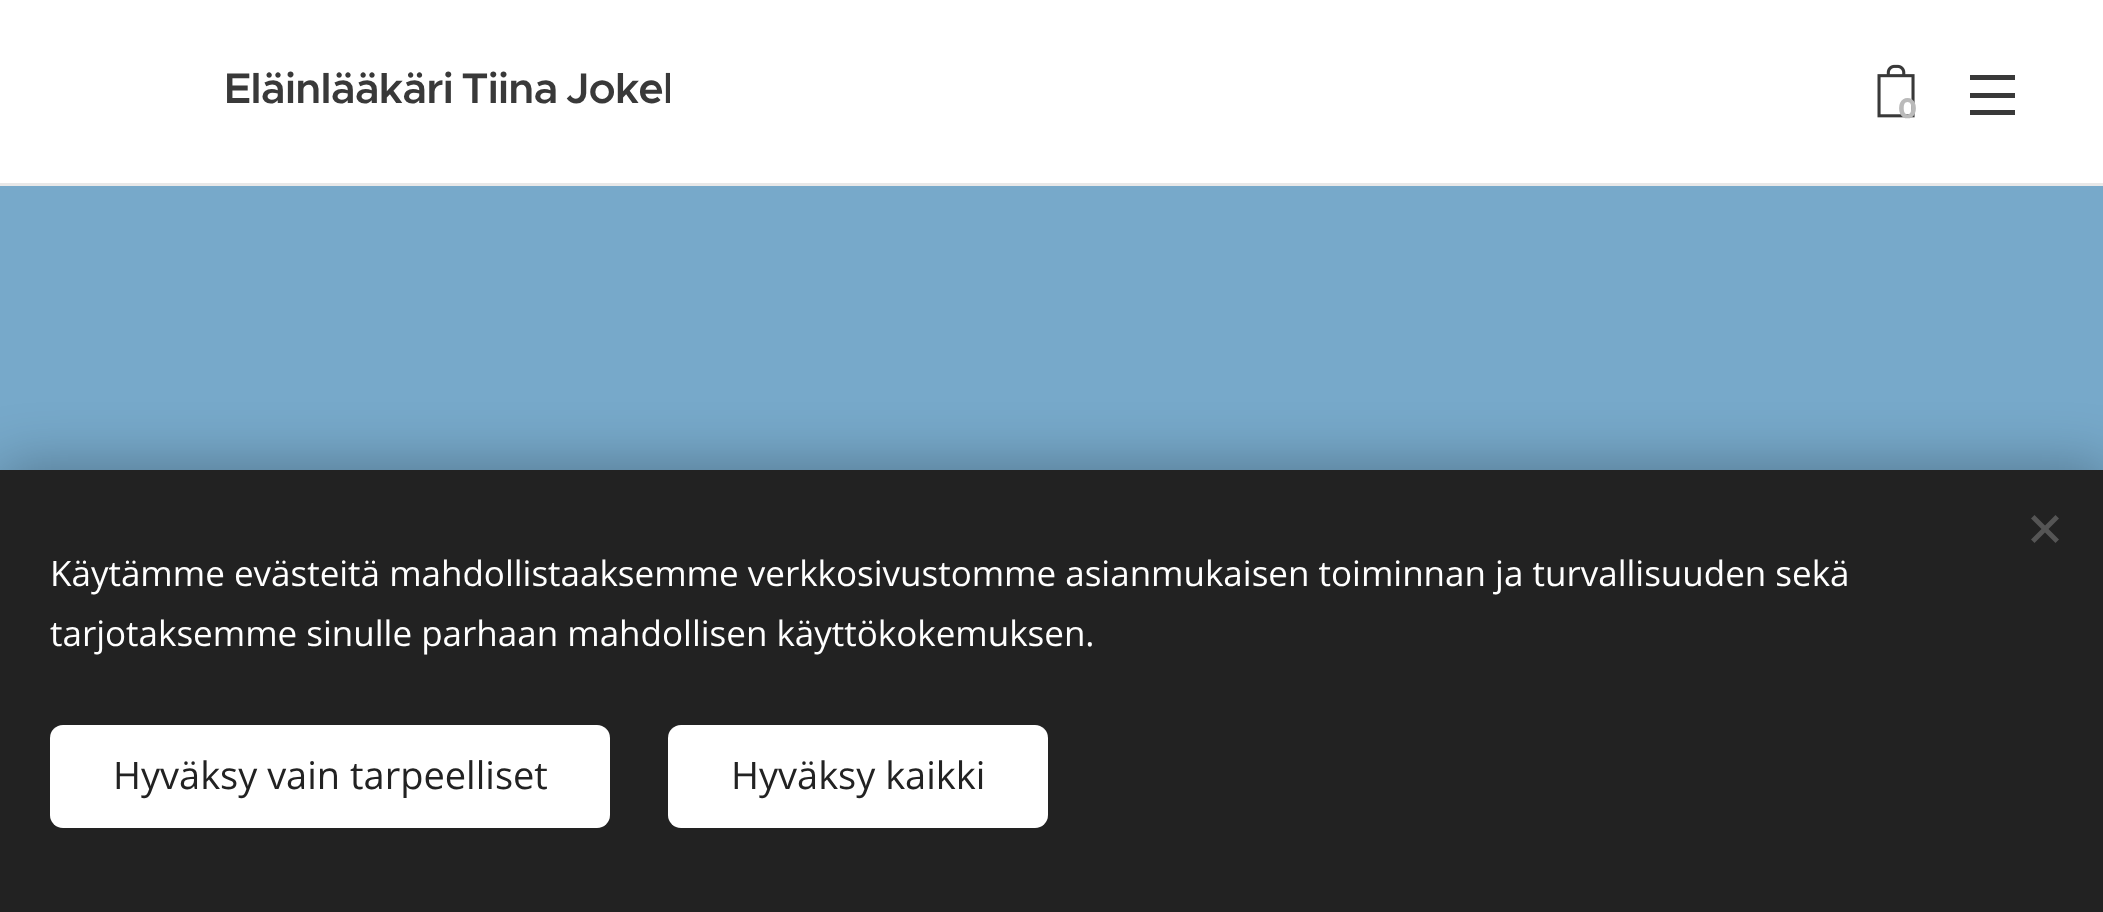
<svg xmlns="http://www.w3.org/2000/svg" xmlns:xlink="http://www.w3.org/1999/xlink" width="2103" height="912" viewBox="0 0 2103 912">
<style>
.cls-1{font:600 43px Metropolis;letter-spacing:-0.8px;fill:#393939}
.cls-2{font:bold 28px Montserrat;fill:#bababa}
.cls-3{font:35px Open Sans;fill:#ffffff}
.cls-4{font:38px Open Sans;fill:#222222}
</style>
<defs>
<clipPath id="clip1"><rect x="215" y="58" width="455" height="70"/></clipPath>
</defs>
<rect width="100%" height="100%" fill="#ffffff"/>
<image xlink:href="image0.png" x="1877" y="64" width="38" height="54"/>
<rect fill="#393939" x="1970" y="93" width="45" height="5"/>
<rect fill="#393939" x="1970" y="75" width="45" height="5"/>
<rect fill="#393939" x="1970" y="110" width="45" height="5"/>
<rect fill="#e8e8e8" x="0" y="183" width="2103" height="3"/>
<rect fill="#77a9ca" x="0" y="186" width="2103" height="284"/>
<rect fill="#000000" fill-opacity="0.33" filter="blur(31px)" x="0" y="470" width="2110" height="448"/>
<rect fill="#222222" x="0" y="470" width="2103" height="442"/>
<path fill="#555555" d="M2031 539.5L2055.5 515L2059 518.5L2034.5 543Z"/>
<path fill="#555555" d="M2034.5 515L2059 539.5L2055.5 543L2031 518.5Z"/>
<rect fill="#ffffff" x="50" y="725" width="560" height="103" rx="13"/>
<rect fill="#ffffff" x="668" y="725" width="380" height="103" rx="13"/>
<g clip-path="url(#clip1)">
<text class="cls-1" x="224" y="103" word-spacing="-3">Eläinlääkäri Tiina Jokel</text>
</g>
<text class="cls-2" x="1898" y="118">0</text>
<text class="cls-3"><tspan x="50" y="586">Käytämme evästeitä mahdollistaaksemme verkkosivustomme asianmukaisen toiminnan ja turvallisuuden sekä</tspan><tspan x="50" y="646">tarjotaksemme sinulle parhaan mahdollisen käyttökokemuksen.</tspan></text>
<text class="cls-4" x="113" y="789">Hyväksy vain tarpeelliset</text>
<text class="cls-4" x="731" y="789">Hyväksy kaikki</text>
</svg>
